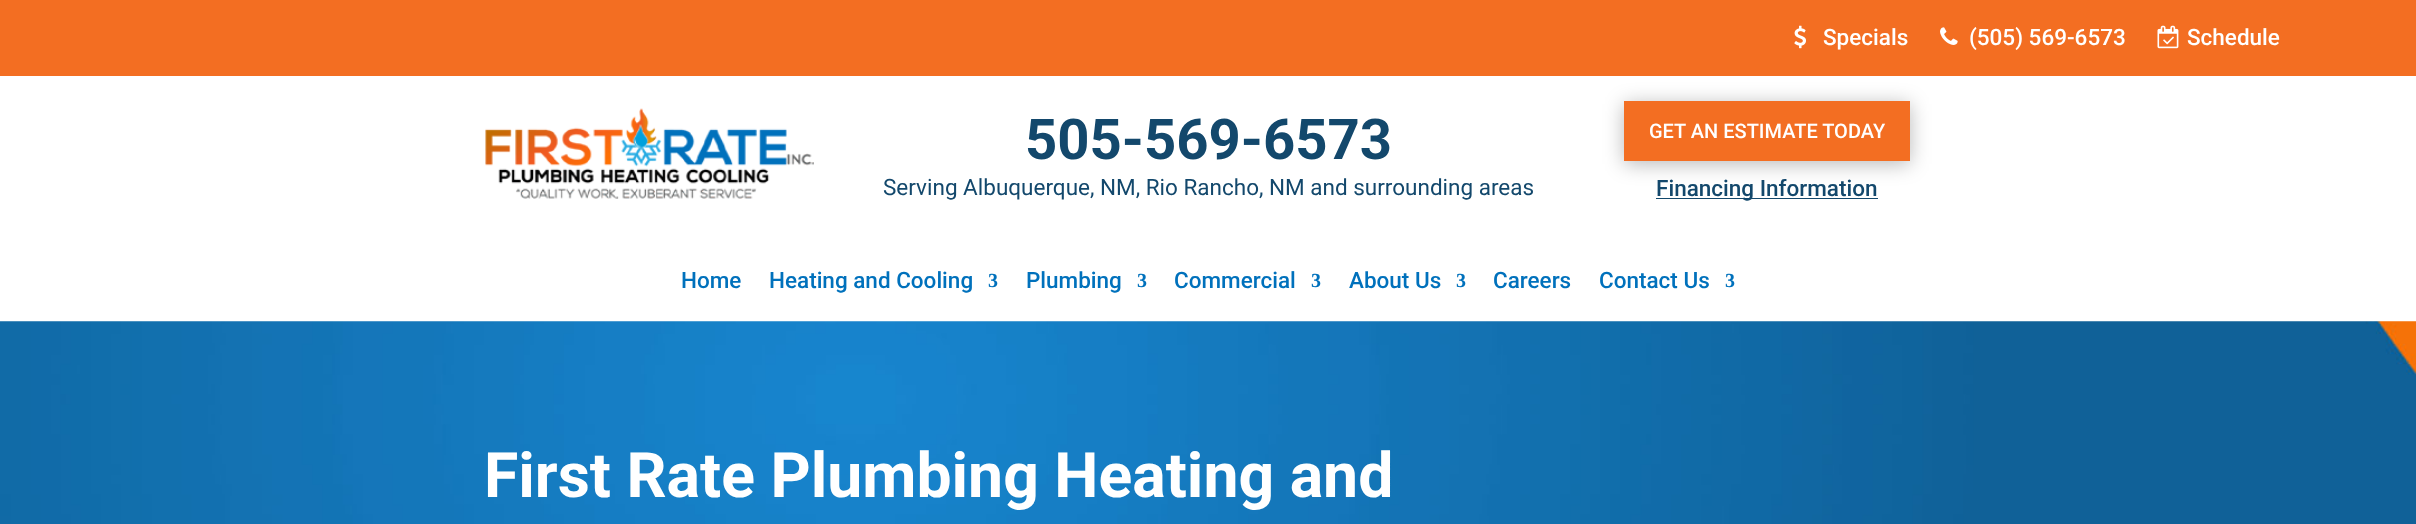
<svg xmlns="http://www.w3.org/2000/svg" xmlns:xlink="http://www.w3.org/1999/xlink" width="2416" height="524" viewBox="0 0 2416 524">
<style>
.cls-1{font:500 22.5px Roboto;fill:#ffffff}
.cls-2{font:bold 56.25px Roboto;fill:#13486c}
.cls-3{font:22.5px Roboto;fill:#13486c}
.cls-4{font:500 20px Roboto;fill:#ffffff}
.cls-5{font:500 22.5px Roboto;fill:#13486c}
.cls-6{font:500 22.5px Roboto;fill:#0071bc}
.cls-7{font:bold 20px Liberation Serif;fill:#0071bc}
.cls-8{font:bold 62.5px Roboto;fill:#ffffff}
</style>
<rect width="100%" height="100%" fill="#ffffff"/>
<rect fill="#f36e22" x="0" y="0" width="2416" height="76"/>
<image xlink:href="image0.png" x="1794" y="25" width="12" height="24"/>
<image xlink:href="image1.png" x="1940" y="27" width="18" height="18"/>
<image xlink:href="image2.png" x="2157" y="25" width="22" height="24"/>
<image xlink:href="image3.png" x="485" y="108" width="329" height="91"/>
<rect fill="#000000" fill-opacity="0.28" filter="blur(10px)" x="1624" y="104" width="286" height="60"/>
<rect fill="#f36e22" x="1624" y="101" width="286" height="60"/>
<rect fill="#13486c" x="1656" y="198" width="222" height="1"/>
<image xlink:href="image4.png" x="0" y="321" width="2416" height="203"/>
<text class="cls-1" x="1823" y="45">Specials</text>
<text class="cls-1" x="1969" y="45">(505) 569-6573</text>
<text class="cls-1" x="2187" y="45">Schedule</text>
<text class="cls-2" x="1025" y="159">505-569-6573</text>
<text class="cls-3" x="883" y="195">Serving Albuquerque, NM, Rio Rancho, NM and surrounding areas</text>
<text class="cls-4" x="1649" y="138">GET AN ESTIMATE TODAY</text>
<text class="cls-5" x="1656" y="196">Financing Information</text>
<text class="cls-6" x="681" y="288">Home</text>
<text class="cls-6" x="769" y="288">Heating and Cooling</text>
<text class="cls-7" x="988" y="287">3</text>
<text class="cls-6" x="1026" y="288">Plumbing</text>
<text class="cls-7" x="1137" y="287">3</text>
<text class="cls-6" x="1174" y="288">Commercial</text>
<text class="cls-7" x="1311" y="287">3</text>
<text class="cls-6" x="1349" y="288">About Us</text>
<text class="cls-7" x="1456" y="287">3</text>
<text class="cls-6" x="1493" y="288">Careers</text>
<text class="cls-6" x="1599" y="288">Contact Us</text>
<text class="cls-7" x="1725" y="287">3</text>
<text class="cls-8" x="484" y="497">First Rate Plumbing Heating and</text>
</svg>
